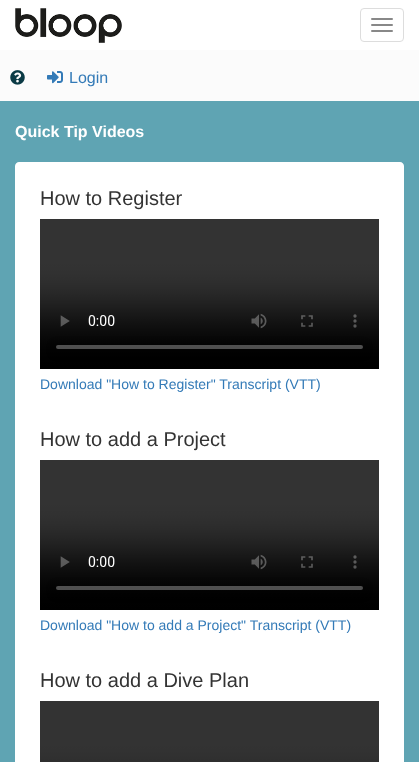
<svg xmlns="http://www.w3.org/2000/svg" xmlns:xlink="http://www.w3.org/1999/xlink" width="419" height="762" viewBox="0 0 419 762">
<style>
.cls-1{font:16px Liberation Sans;fill:#337ab7}
.cls-2{font:bold 16px Liberation Sans;fill:#ffffff}
.cls-3{font:20px Liberation Sans;fill:#333333}
.cls-4{font:14px Liberation Sans;fill:#337ab7}
</style>
<rect width="100%" height="100%" fill="#5fa4b3"/>
<rect fill="#fbfbfb" x="0" y="50" width="419" height="51"/>
<rect fill="#ffffff" x="0" y="0" width="419" height="50"/>
<image xlink:href="image0.png" x="15" y="8" width="107" height="35"/>
<rect fill="none" stroke="#dddddd" x="360.5" y="8.5" width="43" height="33" rx="3.5"/>
<rect fill="#888888" x="371" y="18" width="22" height="2" rx="1"/>
<rect fill="#888888" x="371" y="24" width="22" height="2" rx="1"/>
<rect fill="#888888" x="371" y="30" width="22" height="2" rx="1"/>
<image xlink:href="image1.png" x="10" y="70" width="15" height="15"/>
<image xlink:href="image2.png" x="47" y="71" width="16" height="13"/>
<path fill="#ffffff" d="M19 162H400C402 162 404 164 404 166V762H15V166C15 164 17 162 19 162Z"/>
<image xlink:href="image3.png" x="40" y="219" width="339" height="150"/>
<image xlink:href="image4.png" x="40" y="460" width="339" height="150"/>
<image xlink:href="image5.png" x="40" y="701" width="339" height="61"/>
<text class="cls-1" x="69" y="83">Login</text>
<text class="cls-2" x="15" y="137">Quick Tip Videos</text>
<text class="cls-3" x="40" y="205">How to Register</text>
<text class="cls-4" x="40" y="389">Download "How to Register" Transcript (VTT)</text>
<text class="cls-3" x="40" y="446">How to add a Project</text>
<text class="cls-4" x="40" y="630">Download "How to add a Project" Transcript (VTT)</text>
<text class="cls-3" x="40" y="687">How to add a Dive Plan</text>
</svg>
